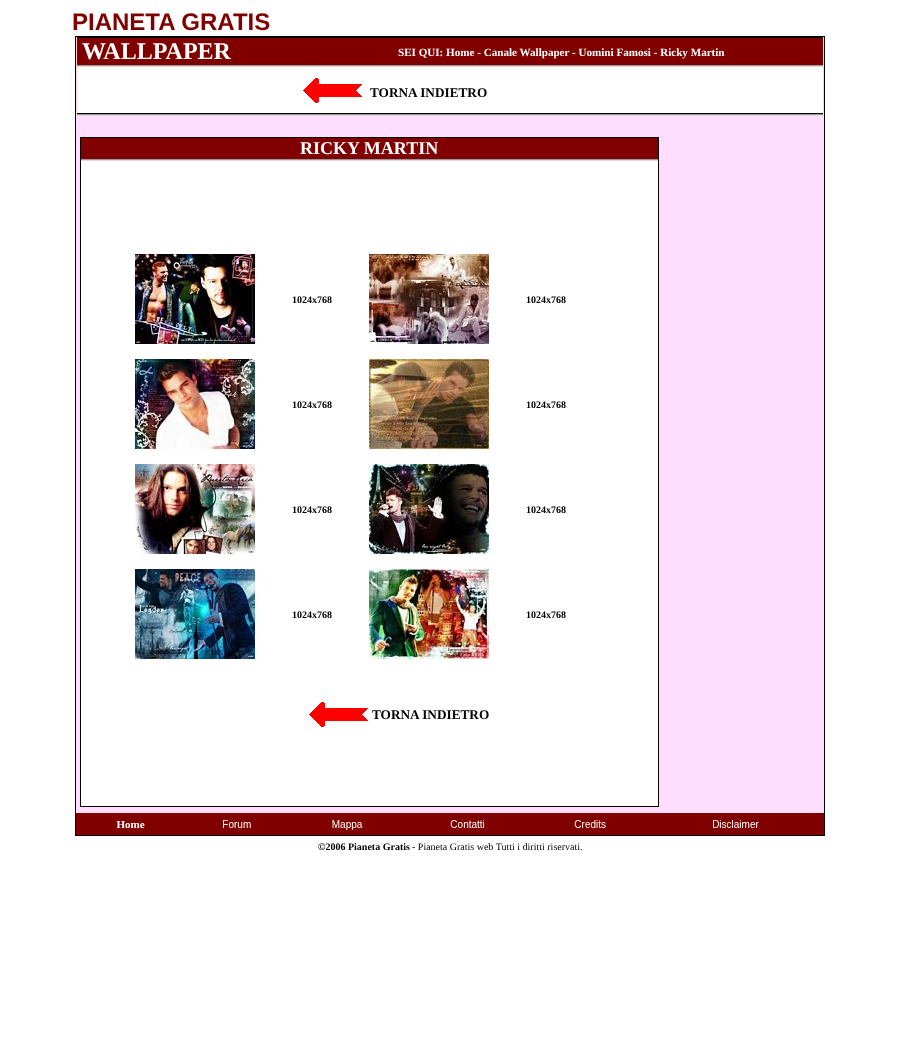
<svg xmlns="http://www.w3.org/2000/svg" xmlns:xlink="http://www.w3.org/1999/xlink" width="900" height="1050" viewBox="0 0 900 1050">
<style>
.cls-1{font:bold 24px Liberation Sans;fill:#800000}
.cls-2{font:bold 24px Liberation Serif;fill:#ffffff}
.cls-3{font:bold 11.1px Liberation Serif;fill:#ffffff}
.cls-4{font:bold 13.25px Liberation Serif;fill:#000000}
.cls-5{font:bold 18px Liberation Serif;fill:#ffffff}
.cls-6{font:bold 10px Liberation Serif;fill:#000000}
.cls-7{font:10px Liberation Serif;fill:#000000}
</style>
<rect width="100%" height="100%" fill="#ffffff"/>
<rect fill="#ffd5d5" x="76" y="37" width="748" height="79"/>
<rect fill="none" stroke="#000000" x="75.5" y="36.5" width="749" height="799"/>
<rect fill="#000000" x="77" y="37" width="746" height="1"/>
<rect fill="#000000" x="77" y="113" width="746" height="1"/>
<rect fill="#800000" x="77" y="38" width="746" height="27"/>
<rect fill="#999999" x="77" y="65" width="746" height="1"/>
<rect fill="#dddddd" x="77" y="66" width="746" height="1"/>
<rect fill="#ffffff" x="77" y="67" width="746" height="46"/>
<image xlink:href="image0.png" x="303" y="78" width="59" height="25"/>
<rect fill="#999999" x="77" y="114" width="746" height="1"/>
<rect fill="#dddddd" x="77" y="115" width="746" height="1"/>
<rect fill="#ffddff" x="76" y="116" width="748" height="697"/>
<rect fill="#ffffff" x="81" y="161" width="577" height="645"/>
<rect fill="none" stroke="#000000" x="80.5" y="137.5" width="578" height="669"/>
<rect fill="#800000" x="81" y="138" width="577" height="21"/>
<rect fill="#999999" x="81" y="159" width="577" height="1"/>
<rect fill="#dddddd" x="81" y="160" width="577" height="1"/>
<image xlink:href="image1.png" x="135" y="254" width="120" height="90"/>
<image xlink:href="image2.png" x="369" y="254" width="120" height="90"/>
<image xlink:href="image3.png" x="135" y="359" width="120" height="90"/>
<image xlink:href="image4.png" x="369" y="359" width="120" height="90"/>
<image xlink:href="image5.png" x="135" y="464" width="120" height="90"/>
<image xlink:href="image6.png" x="369" y="464" width="120" height="90"/>
<image xlink:href="image7.png" x="135" y="569" width="120" height="90"/>
<image xlink:href="image8.png" x="369" y="569" width="120" height="90"/>
<image xlink:href="image0.png" x="309" y="702" width="59" height="25"/>
<rect fill="#800000" x="76" y="813" width="748" height="22"/>
<image xlink:href="image9.png" x="116" y="820" width="643" height="10"/>
<text class="cls-1" x="72" y="30">PIANETA GRATIS</text>
<text class="cls-2" x="82" y="59">WALLPAPER</text>
<text class="cls-3" x="398" y="56">SEI QUI: Home - Canale Wallpaper - Uomini Famosi - Ricky Martin</text>
<text class="cls-4" x="370" y="97">TORNA INDIETRO</text>
<text class="cls-5" x="300" y="154">RICKY MARTIN</text>
<text class="cls-6" x="292" y="303">1024x768</text>
<text class="cls-6" x="526" y="303">1024x768</text>
<text class="cls-6" x="292" y="408">1024x768</text>
<text class="cls-6" x="526" y="408">1024x768</text>
<text class="cls-6" x="292" y="513">1024x768</text>
<text class="cls-6" x="526" y="513">1024x768</text>
<text class="cls-6" x="292" y="618">1024x768</text>
<text class="cls-6" x="526" y="618">1024x768</text>
<text class="cls-4" x="372" y="719">TORNA INDIETRO</text>
<text class="cls-6" x="318" y="850">©2006 Pianeta Gratis</text>
<text class="cls-7" x="412" y="850">- Pianeta Gratis web Tutti i diritti riservati.</text>
</svg>
